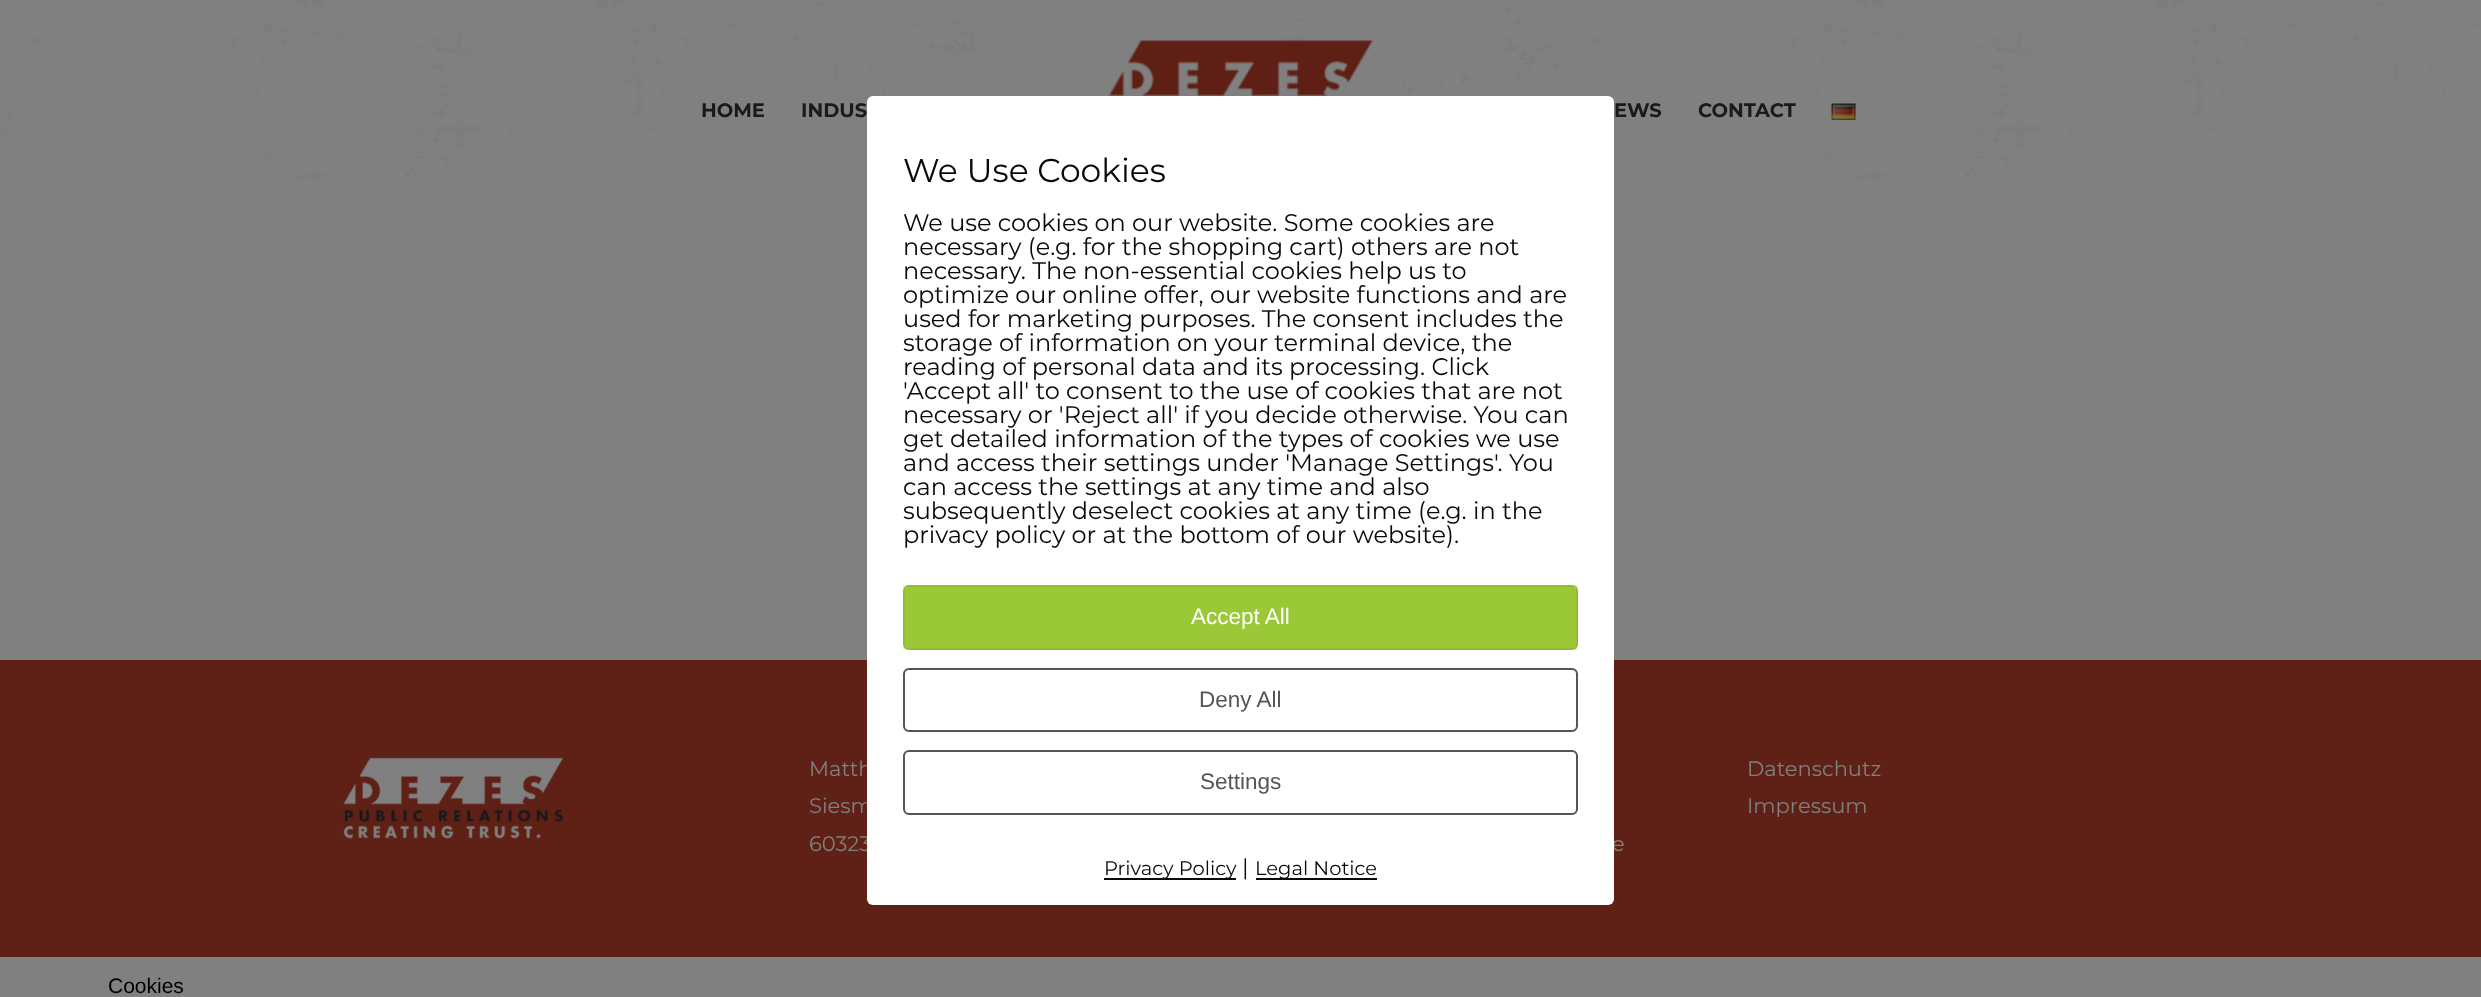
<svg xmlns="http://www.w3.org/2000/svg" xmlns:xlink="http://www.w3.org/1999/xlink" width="2481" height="997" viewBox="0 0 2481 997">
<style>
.cls-1{font:bold 19.5px Montserrat;fill:#1a1a1a}
.cls-2{font:21px Montserrat;fill:#808080}
.cls-3{font:33px Montserrat;fill:#0a0a0a}
.cls-4{font:24px Montserrat;fill:#0a0a0a}
.cls-5{font:22.5px Liberation Sans;fill:#ffffff}
.cls-6{font:22.5px Liberation Sans;fill:#555555}
.cls-7{font:19.5px Montserrat;fill:#0a0a0a}
.cls-8{font:22.5px Montserrat;fill:#0a0a0a}
.cls-9{font:21px Liberation Sans;fill:#000000}
</style>
<rect width="100%" height="100%" fill="#808080"/>
<image xlink:href="image0.png" x="0" y="0" width="2479" height="180"/>
<image xlink:href="image1.png" x="1108" y="40" width="265" height="56"/>
<image xlink:href="image2.png" x="1831" y="103" width="25" height="17"/>
<rect fill="#5f2015" x="0" y="660" width="2481" height="297"/>
<image xlink:href="image3.png" x="343" y="757" width="221" height="82"/>
<text class="cls-1" x="701" y="117">HOME</text>
<text class="cls-1" x="801" y="117">INDUS</text>
<text class="cls-1" x="1614" y="117">EWS</text>
<text class="cls-1" x="1698" y="117">CONTACT</text>
<text class="cls-2"><tspan x="809" y="776">Matth</tspan><tspan x="809" y="813">Siesm</tspan><tspan x="809" y="851">60323</tspan></text>
<text class="cls-2"><tspan x="1747" y="776">Datenschutz</tspan><tspan x="1747" y="813">Impressum</tspan></text>
<text class="cls-2" x="1612" y="851">e</text>
<rect fill="#ffffff" x="867" y="96" width="747" height="809" rx="6"/>
<text class="cls-3" x="903" y="182">We Use Cookies</text>
<text class="cls-4"><tspan x="903" y="231">We use cookies on our website. Some cookies are</tspan><tspan x="903" y="255">necessary (e.g. for the shopping cart) others are not</tspan><tspan x="903" y="279">necessary. The non-essential cookies help us to</tspan><tspan x="903" y="303">optimize our online offer, our website functions and are</tspan><tspan x="903" y="327">used for marketing purposes. The consent includes the</tspan><tspan x="903" y="351">storage of information on your terminal device, the</tspan><tspan x="903" y="375">reading of personal data and its processing. Click</tspan><tspan x="903" y="399">'Accept all' to consent to the use of cookies that are not</tspan><tspan x="903" y="423">necessary or 'Reject all' if you decide otherwise. You can</tspan><tspan x="903" y="447">get detailed information of the types of cookies we use</tspan><tspan x="903" y="471">and access their settings under 'Manage Settings'. You</tspan><tspan x="903" y="495">can access the settings at any time and also</tspan><tspan x="903" y="519">subsequently deselect cookies at any time (e.g. in the</tspan><tspan x="903" y="543">privacy policy or at the bottom of our website).</tspan></text>
<rect fill="#9ac836" x="903" y="585" width="675" height="65" rx="6"/>
<rect fill="none" stroke="#000000" stroke-opacity="0.06" stroke-width="2" x="904" y="586" width="673" height="63"/>
<text class="cls-5" x="1191" y="624">Accept All</text>
<rect fill="none" stroke="#555555" stroke-width="2" x="904" y="669" width="673" height="62" rx="5"/>
<text class="cls-6" x="1199" y="707">Deny All</text>
<rect fill="none" stroke="#555555" stroke-width="2" x="904" y="751" width="673" height="63" rx="5"/>
<text class="cls-6" x="1200" y="789">Settings</text>
<rect fill="#0a0a0a" x="1104" y="878" width="132" height="2"/>
<text class="cls-7" x="1104" y="875">Privacy Policy</text>
<text class="cls-8" x="1242" y="875">|</text>
<rect fill="#0a0a0a" x="1256" y="878" width="121" height="2"/>
<text class="cls-7" x="1255" y="875">Legal Notice</text>
<text class="cls-9" x="108" y="993">Cookies</text>
</svg>
